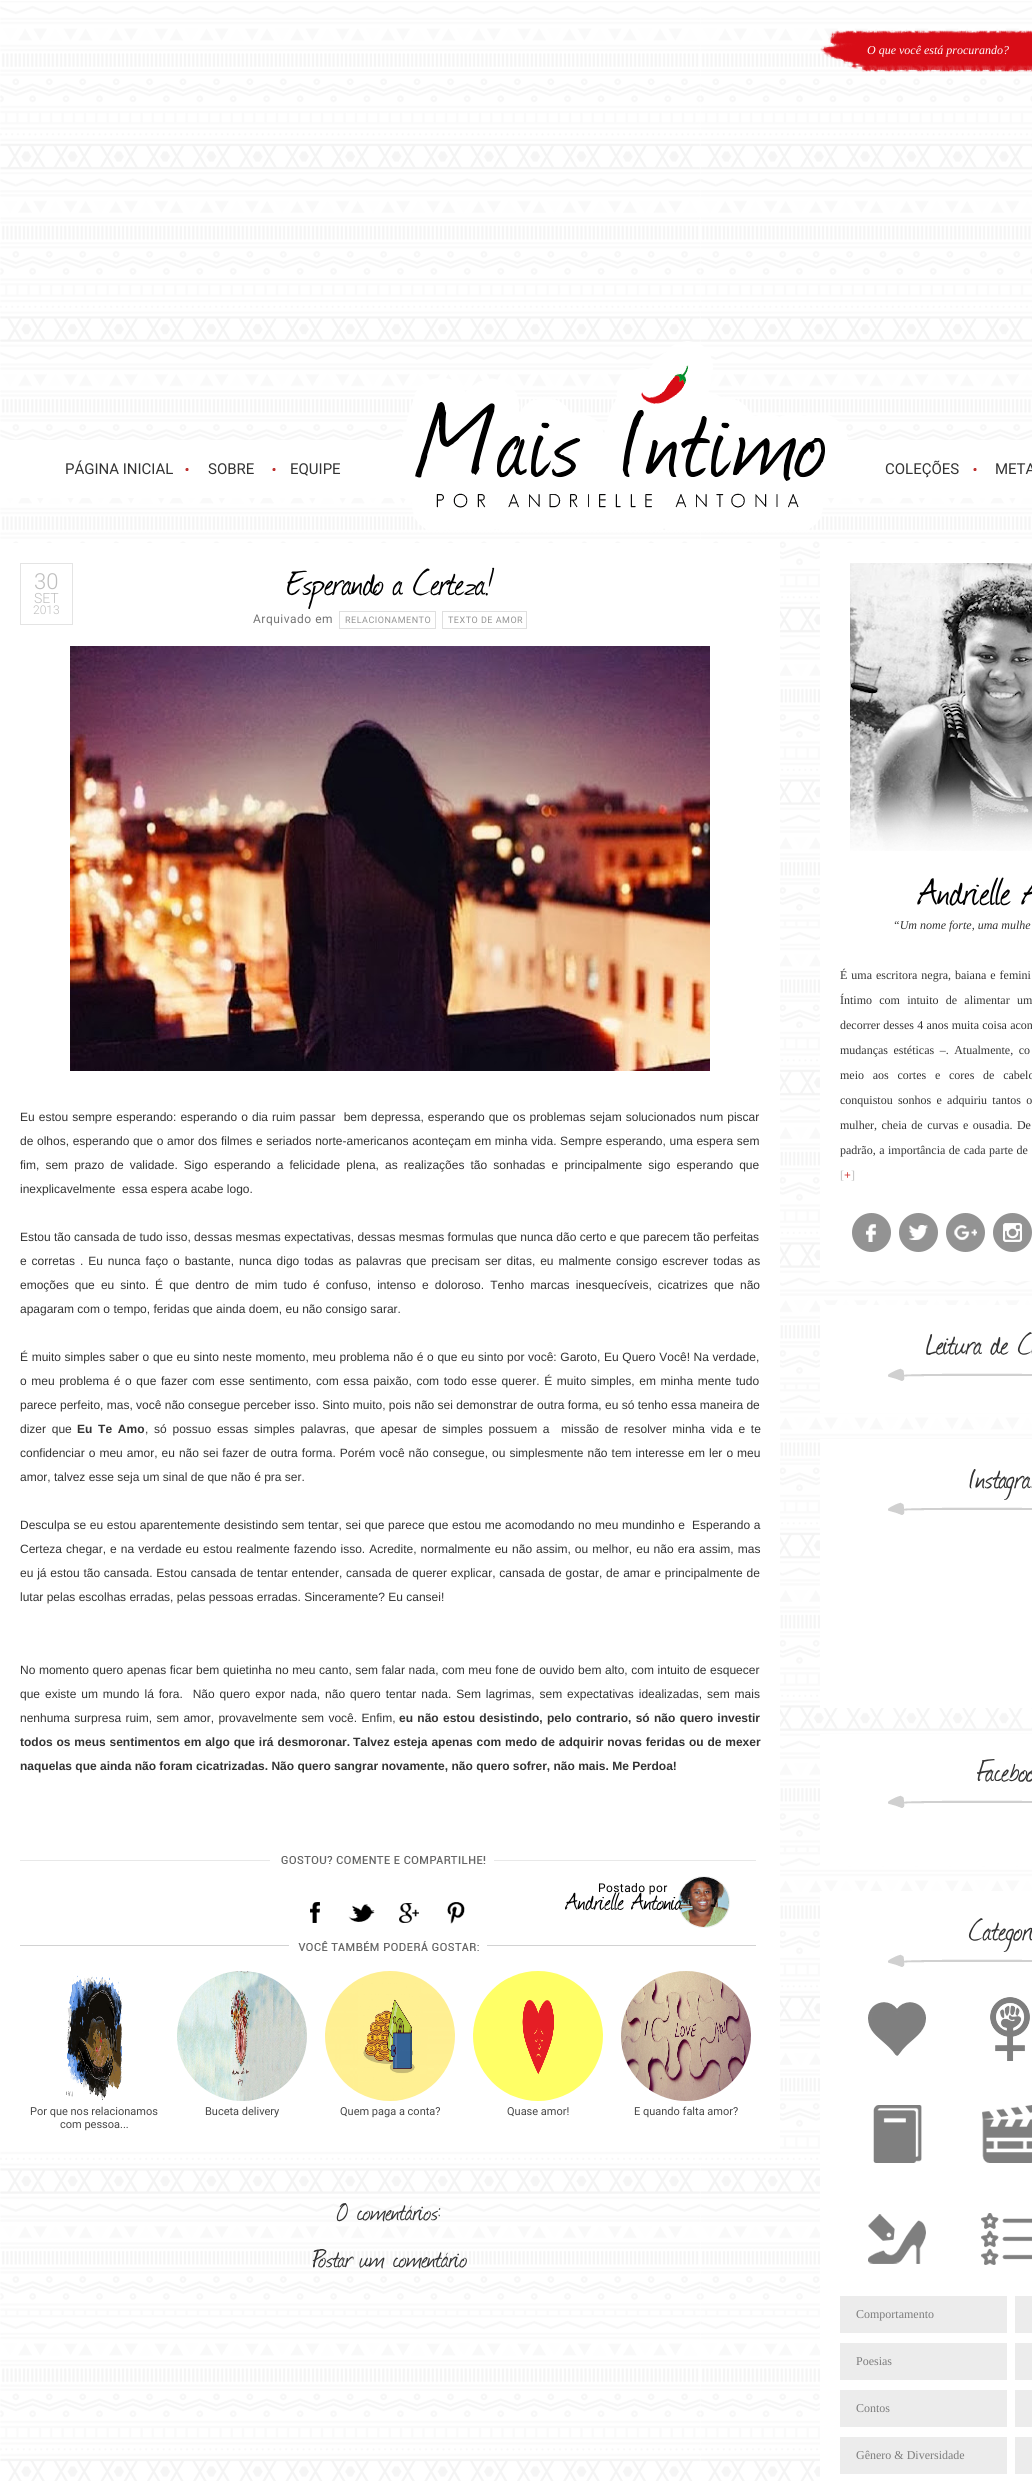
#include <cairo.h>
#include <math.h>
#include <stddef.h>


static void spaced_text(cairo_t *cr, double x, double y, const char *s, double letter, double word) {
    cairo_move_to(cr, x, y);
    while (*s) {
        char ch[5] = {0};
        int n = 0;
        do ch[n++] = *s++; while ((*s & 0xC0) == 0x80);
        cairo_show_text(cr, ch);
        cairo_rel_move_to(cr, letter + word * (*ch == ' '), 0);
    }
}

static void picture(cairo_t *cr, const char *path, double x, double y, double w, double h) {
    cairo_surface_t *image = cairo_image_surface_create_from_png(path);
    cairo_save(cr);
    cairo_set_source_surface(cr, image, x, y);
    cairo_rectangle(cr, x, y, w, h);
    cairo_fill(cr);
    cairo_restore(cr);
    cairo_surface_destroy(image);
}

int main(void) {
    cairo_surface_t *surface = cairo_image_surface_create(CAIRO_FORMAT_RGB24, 1032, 2481);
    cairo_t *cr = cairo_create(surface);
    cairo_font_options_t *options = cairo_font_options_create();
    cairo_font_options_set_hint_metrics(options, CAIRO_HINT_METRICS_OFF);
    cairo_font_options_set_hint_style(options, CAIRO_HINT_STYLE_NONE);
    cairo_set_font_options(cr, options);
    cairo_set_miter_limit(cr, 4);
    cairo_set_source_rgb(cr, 1, 1, 1);
    cairo_paint(cr);
    picture(cr, "img1.png", 0, 1, 1032, 2480);
    picture(cr, "img2.png", 820, 30, 212, 43);
    cairo_select_font_face(cr, "Liberation Serif", CAIRO_FONT_SLANT_ITALIC, CAIRO_FONT_WEIGHT_NORMAL);
    cairo_set_font_size(cr, 12);
    cairo_set_source_rgb(cr, 1, 1, 1);
    cairo_move_to(cr, 867, 54);
    cairo_show_text(cr, "O que você está procurando?");
    cairo_rectangle(cr, 820, 543, 212, 738);
    cairo_fill(cr);
    picture(cr, "img3.png", 850, 563, 182, 288);
    picture(cr, "img4.png", 917, 877, 94, 29);
    picture(cr, "img5.png", 1021, 885, 11, 20);
    cairo_set_source_rgb(cr, 0.2, 0.2, 0.2);
    cairo_move_to(cr, 893, 929);
    cairo_show_text(cr, "“Um nome forte, uma mulhe");
    cairo_select_font_face(cr, "Liberation Serif", CAIRO_FONT_SLANT_NORMAL, CAIRO_FONT_WEIGHT_NORMAL);
    spaced_text(cr, 840, 979, "É uma escritora negra, baiana e femini", 0, 1);
    spaced_text(cr, 840, 1004, "Íntimo com intuito de alimentar um", 0, 4.25);
    spaced_text(cr, 840, 1029, "decorrer desses 4 anos muita coisa acon", 0, 0.25);
    spaced_text(cr, 840, 1054, "mudanças estéticas –. Atualmente, co", 0, 2.5);
    spaced_text(cr, 840, 1079, "meio aos cortes e cores de cabelo", 0, 5.75);
    spaced_text(cr, 840, 1104, "conquistou sonhos e adquiriu tantos o", 0, 2.25);
    spaced_text(cr, 840, 1129, "mulher, cheia de curvas e ousadia. De", 0, 1.5);
    spaced_text(cr, 840, 1154, "padrão, a importância de cada parte de", 0, 0.5);
    cairo_set_source_rgb(cr, 0.745, 0.745, 0.745);
    cairo_move_to(cr, 840, 1179);
    cairo_show_text(cr, "[");
    cairo_select_font_face(cr, "Liberation Serif", CAIRO_FONT_SLANT_NORMAL, CAIRO_FONT_WEIGHT_BOLD);
    cairo_set_source_rgb(cr, 0.82, 0.235, 0.224);
    cairo_move_to(cr, 844, 1179);
    cairo_show_text(cr, "+");
    cairo_select_font_face(cr, "Liberation Serif", CAIRO_FONT_SLANT_NORMAL, CAIRO_FONT_WEIGHT_NORMAL);
    cairo_set_source_rgb(cr, 0.745, 0.745, 0.745);
    cairo_move_to(cr, 851, 1179);
    cairo_show_text(cr, "]");
    cairo_set_source_rgb(cr, 0.576, 0.576, 0.576);
    cairo_new_path(cr);
    cairo_arc(cr, 871.5, 1232.5, 19.5, 0, 2 * M_PI);
    cairo_fill(cr);
    cairo_arc(cr, 918.5, 1232.5, 19.5, 0, 2 * M_PI);
    cairo_fill(cr);
    cairo_arc(cr, 965.5, 1232.5, 19.5, 0, 2 * M_PI);
    cairo_fill(cr);
    cairo_arc(cr, 1012.5, 1232.5, 19.5, 0, 2 * M_PI);
    cairo_fill(cr);
    picture(cr, "img6.png", 866, 1224, 10, 18);
    picture(cr, "img7.png", 909, 1225, 19, 15);
    picture(cr, "img8.png", 954, 1225, 23, 15);
    picture(cr, "img9.png", 1003, 1223, 19, 19);
    cairo_set_source_rgb(cr, 1, 1, 1);
    cairo_rectangle(cr, 820, 1305, 212, 108);
    cairo_fill(cr);
    picture(cr, "img10.png", 888, 1368, 144, 13);
    picture(cr, "img11.png", 926, 1334, 56, 21);
    picture(cr, "img12.png", 990, 1337, 19, 18);
    picture(cr, "img13.png", 1017, 1332, 15, 23);
    cairo_rectangle(cr, 820, 1439, 212, 269);
    cairo_fill(cr);
    picture(cr, "img10.png", 888, 1502, 144, 13);
    picture(cr, "img14.png", 969, 1469, 63, 31);
    cairo_rectangle(cr, 820, 1734, 212, 132);
    cairo_fill(cr);
    picture(cr, "img10.png", 888, 1795, 144, 13);
    picture(cr, "img15.png", 977, 1759, 55, 23);
    cairo_rectangle(cr, 820, 1891, 212, 590);
    cairo_fill(cr);
    picture(cr, "img10.png", 888, 1954, 144, 13);
    picture(cr, "img16.png", 968, 1918, 64, 34);
    picture(cr, "img17.png", 868, 2002, 58, 54);
    picture(cr, "img18.png", 990, 1997, 40, 64);
    picture(cr, "img19.png", 873, 2105, 49, 58);
    picture(cr, "img20.png", 982, 2105, 50, 58);
    picture(cr, "img21.png", 868, 2214, 58, 50);
    picture(cr, "img22.png", 981, 2213, 51, 52);
    cairo_set_source_rgb(cr, 0.925, 0.925, 0.925);
    cairo_rectangle(cr, 840, 2296, 167, 37);
    cairo_fill(cr);
    cairo_set_source_rgb(cr, 0.49, 0.49, 0.49);
    cairo_move_to(cr, 856, 2318);
    cairo_show_text(cr, "Comportamento");
    cairo_set_source_rgb(cr, 0.925, 0.925, 0.925);
    cairo_rectangle(cr, 840, 2343, 167, 37);
    cairo_fill(cr);
    cairo_set_source_rgb(cr, 0.49, 0.49, 0.49);
    cairo_move_to(cr, 856, 2365);
    cairo_show_text(cr, "Poesias");
    cairo_set_source_rgb(cr, 0.925, 0.925, 0.925);
    cairo_rectangle(cr, 840, 2390, 167, 37);
    cairo_fill(cr);
    cairo_set_source_rgb(cr, 0.49, 0.49, 0.49);
    cairo_move_to(cr, 856, 2412);
    cairo_show_text(cr, "Contos");
    cairo_set_source_rgb(cr, 0.925, 0.925, 0.925);
    cairo_rectangle(cr, 840, 2437, 167, 37);
    cairo_fill(cr);
    cairo_set_source_rgb(cr, 0.49, 0.49, 0.49);
    cairo_move_to(cr, 856, 2459);
    cairo_show_text(cr, "Gênero & Diversidade");
    cairo_set_source_rgb(cr, 0.925, 0.925, 0.925);
    cairo_rectangle(cr, 1015, 2296, 17, 37);
    cairo_fill(cr);
    cairo_rectangle(cr, 1015, 2343, 17, 37);
    cairo_fill(cr);
    cairo_rectangle(cr, 1015, 2390, 17, 37);
    cairo_fill(cr);
    cairo_rectangle(cr, 1015, 2437, 17, 37);
    cairo_fill(cr);
    cairo_set_source_rgb(cr, 1, 1, 1);
    cairo_rectangle(cr, 0, 440, 1032, 58);
    cairo_fill(cr);
    picture(cr, "img23.png", 185, 468, 792, 3);
    cairo_select_font_face(cr, "Roboto", CAIRO_FONT_SLANT_NORMAL, CAIRO_FONT_WEIGHT_NORMAL);
    cairo_set_font_size(cr, 15);
    cairo_set_source_rgb(cr, 0.2, 0.2, 0.2);
    cairo_move_to(cr, 65, 474);
    cairo_show_text(cr, "PÁGINA INICIAL");
    cairo_move_to(cr, 208, 474);
    cairo_show_text(cr, "SOBRE");
    cairo_move_to(cr, 290, 474);
    cairo_show_text(cr, "EQUIPE");
    cairo_move_to(cr, 885, 474);
    cairo_show_text(cr, "COLEÇÕES");
    cairo_move_to(cr, 995, 474);
    cairo_show_text(cr, "META");
    cairo_set_source_rgb(cr, 1, 1, 1);
    cairo_rectangle(cr, 0, 543, 780, 1606);
    cairo_fill(cr);
    cairo_rectangle(cr, 20.5, 563.5, 52, 61);
    cairo_set_source_rgb(cr, 0.894, 0.894, 0.894);
    cairo_set_line_width(cr, 1);
    cairo_stroke(cr);
    cairo_select_font_face(cr, "Roboto Light", CAIRO_FONT_SLANT_NORMAL, CAIRO_FONT_WEIGHT_NORMAL);
    cairo_set_font_size(cr, 22);
    cairo_set_source_rgb(cr, 0.745, 0.745, 0.745);
    cairo_move_to(cr, 34, 589);
    cairo_show_text(cr, "30");
    cairo_set_font_size(cr, 14);
    cairo_move_to(cr, 34, 603);
    cairo_show_text(cr, "SET");
    cairo_set_font_size(cr, 12);
    cairo_move_to(cr, 33, 614);
    cairo_show_text(cr, "2013");
    picture(cr, "img24.png", 287, 570, 97, 39);
    picture(cr, "img25.png", 392, 581, 11, 15);
    picture(cr, "img26.png", 413, 567, 82, 29);
    cairo_select_font_face(cr, "Roboto", CAIRO_FONT_SLANT_NORMAL, CAIRO_FONT_WEIGHT_NORMAL);
    cairo_set_source_rgb(cr, 0.459, 0.459, 0.459);
    spaced_text(cr, 253, 623, "Arquivado em", 0.5, 0);
    cairo_rectangle(cr, 339.5, 611.5, 96, 17);
    cairo_set_source_rgb(cr, 0.875, 0.875, 0.875);
    cairo_stroke(cr);
    cairo_set_font_size(cr, 9);
    cairo_set_source_rgb(cr, 0.58, 0.58, 0.58);
    spaced_text(cr, 345, 623, "RELACIONAMENTO", 0.5, 0);
    cairo_rectangle(cr, 442.5, 611.5, 84, 17);
    cairo_set_source_rgb(cr, 0.875, 0.875, 0.875);
    cairo_stroke(cr);
    cairo_set_source_rgb(cr, 0.58, 0.58, 0.58);
    spaced_text(cr, 448, 623, "TEXTO DE AMOR", 0.5, 0);
    picture(cr, "img27.png", 70, 646, 640, 425);
    cairo_select_font_face(cr, "Liberation Sans", CAIRO_FONT_SLANT_NORMAL, CAIRO_FONT_WEIGHT_NORMAL);
    cairo_set_font_size(cr, 12);
    cairo_set_source_rgb(cr, 0.2, 0.2, 0.2);
    spaced_text(cr, 20, 1121, "Eu estou sempre esperando: esperando o dia ruim passar  bem depressa, esperando que os problemas sejam solucionados num piscar", 0, 0.75);
    spaced_text(cr, 20, 1145, "de olhos, esperando que o amor dos filmes e seriados norte-americanos aconteçam em minha vida. Sempre esperando, uma espera sem", 0, 0.3);
    spaced_text(cr, 20, 1169, "fim, sem prazo de validade. Sigo esperando a felicidade plena, as realizações tão sonhadas e principalmente sigo esperando que", 0, 2.75);
    cairo_move_to(cr, 20, 1193);
    cairo_show_text(cr, "inexplicavelmente  essa espera acabe logo.");
    cairo_move_to(cr, 20, 1241);
    cairo_show_text(cr, "Estou tão cansada de tudo isso, dessas mesmas expectativas, dessas mesmas formulas que nunca dão certo e que parecem tão perfeitas");
    spaced_text(cr, 20, 1265, "e corretas . Eu nunca faço o bastante, nunca digo todas as palavras que precisam ser ditas, eu malmente consigo escrever todas as", 0, 1.6);
    spaced_text(cr, 20, 1289, "emoções que eu sinto. É que dentro de mim tudo é confuso, intenso e doloroso. Tenho marcas inesquecíveis, cicatrizes que não", 0, 2.75);
    cairo_move_to(cr, 20, 1313);
    cairo_show_text(cr, "apagaram com o tempo, feridas que ainda doem, eu não consigo sarar.");
    spaced_text(cr, 20, 1361, "É muito simples saber o que eu sinto neste momento, meu problema não é o que eu sinto por você: Garoto, Eu Quero Você! Na verdade,", 0, 0.3);
    spaced_text(cr, 20, 1385, "o meu problema é o que fazer com esse sentimento, com essa paixão, com todo esse querer. É muito simples, em minha mente tudo", 0, 1.25);
    cairo_move_to(cr, 20, 1409);
    cairo_show_text(cr, "parece perfeito, mas, você não consegue perceber isso. Sinto muito, pois não sei demonstrar de outra forma, eu só tenho essa maneira de");
    spaced_text(cr, 20, 1433, "dizer que", 0, 2.4);
    cairo_select_font_face(cr, "Liberation Sans", CAIRO_FONT_SLANT_NORMAL, CAIRO_FONT_WEIGHT_BOLD);
    spaced_text(cr, 77, 1433, "Eu Te Amo", 0, 2.4);
    cairo_select_font_face(cr, "Liberation Sans", CAIRO_FONT_SLANT_NORMAL, CAIRO_FONT_WEIGHT_NORMAL);
    spaced_text(cr, 145, 1433, ", só possuo essas simples palavras, que apesar de simples possuem a  missão de resolver minha vida e te", 0, 2.4);
    spaced_text(cr, 20, 1457, "confidenciar o meu amor, eu não sei fazer de outra forma. Porém você não consegue, ou simplesmente não tem interesse em ler o meu", 0, 0.7);
    cairo_move_to(cr, 20, 1481);
    cairo_show_text(cr, "amor, talvez esse seja um sinal de que não é pra ser.");
    spaced_text(cr, 20, 1529, "Desculpa se eu estou aparentemente desistindo sem tentar, sei que parece que estou me acomodando no meu mundinho e  Esperando a", 0, 0.25);
    spaced_text(cr, 20, 1553, "Certeza chegar, e na verdade eu estou realmente fazendo isso. Acredite, normalmente eu não assim, ou melhor, eu não era assim, mas", 0, 0.7);
    spaced_text(cr, 20, 1577, "eu já estou tão cansada. Estou cansada de tentar entender, cansada de querer explicar, cansada de gostar, de amar e principalmente de", 0, 0.45);
    cairo_move_to(cr, 20, 1601);
    cairo_show_text(cr, "lutar pelas escolhas erradas, pelas pessoas erradas. Sinceramente? Eu cansei!");
    spaced_text(cr, 20, 1674, "No momento quero apenas ficar bem quietinha no meu canto, sem falar nada, com meu fone de ouvido bem alto, com intuito de esquecer", 0, 0.25);
    spaced_text(cr, 20, 1698, "que existe um mundo lá fora.  Não quero expor nada, não quero tentar nada. Sem lagrimas, sem expectativas idealizadas, sem mais", 0, 1.6);
    spaced_text(cr, 20, 1722, "nenhuma surpresa ruim, sem amor, provavelmente sem você. Enfim,", 0, 1);
    cairo_select_font_face(cr, "Liberation Sans", CAIRO_FONT_SLANT_NORMAL, CAIRO_FONT_WEIGHT_BOLD);
    spaced_text(cr, 399, 1722, "eu não estou desistindo, pelo contrario, só não quero investir", 0, 1);
    spaced_text(cr, 20, 1746, "todos os meus sentimentos em algo que irá desmoronar.", 0, 0.5);
    spaced_text(cr, 353, 1746, "Talvez esteja apenas com medo de adquirir novas feridas ou de mexer", 0, 0.5);
    cairo_move_to(cr, 20, 1770);
    cairo_show_text(cr, "naquelas que ainda não foram cicatrizadas. Não quero sangrar novamente, não quero sofrer, não mais. Me Perdoa!");
    picture(cr, "img28.png", 20, 1856, 736, 8);
    cairo_select_font_face(cr, "Roboto", CAIRO_FONT_SLANT_NORMAL, CAIRO_FONT_WEIGHT_NORMAL);
    cairo_set_source_rgb(cr, 0, 0, 0);
    spaced_text(cr, 598, 1892, "Postado por", 0.4, 0);
    picture(cr, "img29.png", 565, 1892, 59, 19);
    cairo_arc(cr, 704, 1902, 25.5, 0, 2 * M_PI);
    cairo_set_source_rgb(cr, 0.937, 0.937, 0.937);
    cairo_stroke(cr);
    picture(cr, "img31.png", 679, 1877, 50, 50);
    picture(cr, "img30.png", 631, 1892, 51, 18);
    picture(cr, "img32.png", 310, 1902, 10, 21);
    picture(cr, "img33.png", 348, 1904, 27, 18);
    picture(cr, "img34.png", 399, 1903, 20, 20);
    picture(cr, "img35.png", 447, 1902, 18, 22);
    picture(cr, "img36.png", 20, 1941, 736, 10);
    picture(cr, "img37.png", 66, 1975, 56, 125);
    cairo_set_font_size(cr, 11);
    cairo_set_source_rgb(cr, 0.278, 0.278, 0.278);
    cairo_move_to(cr, 30, 2115);
    cairo_show_text(cr, "Por que nos relacionamos");
    cairo_move_to(cr, 60, 2128);
    cairo_show_text(cr, "com pessoa...");
    picture(cr, "img38.png", 177, 1971, 130, 130);
    cairo_move_to(cr, 205, 2115);
    cairo_show_text(cr, "Buceta delivery");
    picture(cr, "img39.png", 325, 1971, 130, 130);
    cairo_move_to(cr, 340, 2115);
    cairo_show_text(cr, "Quem paga a conta?");
    picture(cr, "img40.png", 473, 1971, 130, 130);
    cairo_move_to(cr, 507, 2115);
    cairo_show_text(cr, "Quase amor!");
    picture(cr, "img41.png", 621, 1971, 130, 130);
    cairo_move_to(cr, 634, 2115);
    cairo_show_text(cr, "E quando falta amor?");
    picture(cr, "img42.png", 336, 2203, 12, 19);
    picture(cr, "img43.png", 357, 2205, 84, 17);
    picture(cr, "img44.png", 312, 2249, 42, 19);
    picture(cr, "img45.png", 359, 2257, 26, 12);
    picture(cr, "img46.png", 393, 2252, 74, 17);
    picture(cr, "img47.png", 402, 341, 446, 189);
    cairo_surface_write_to_png(surface, "page.png");
    cairo_font_options_destroy(options);
    cairo_destroy(cr);
    cairo_surface_destroy(surface);
    return 0;
}
